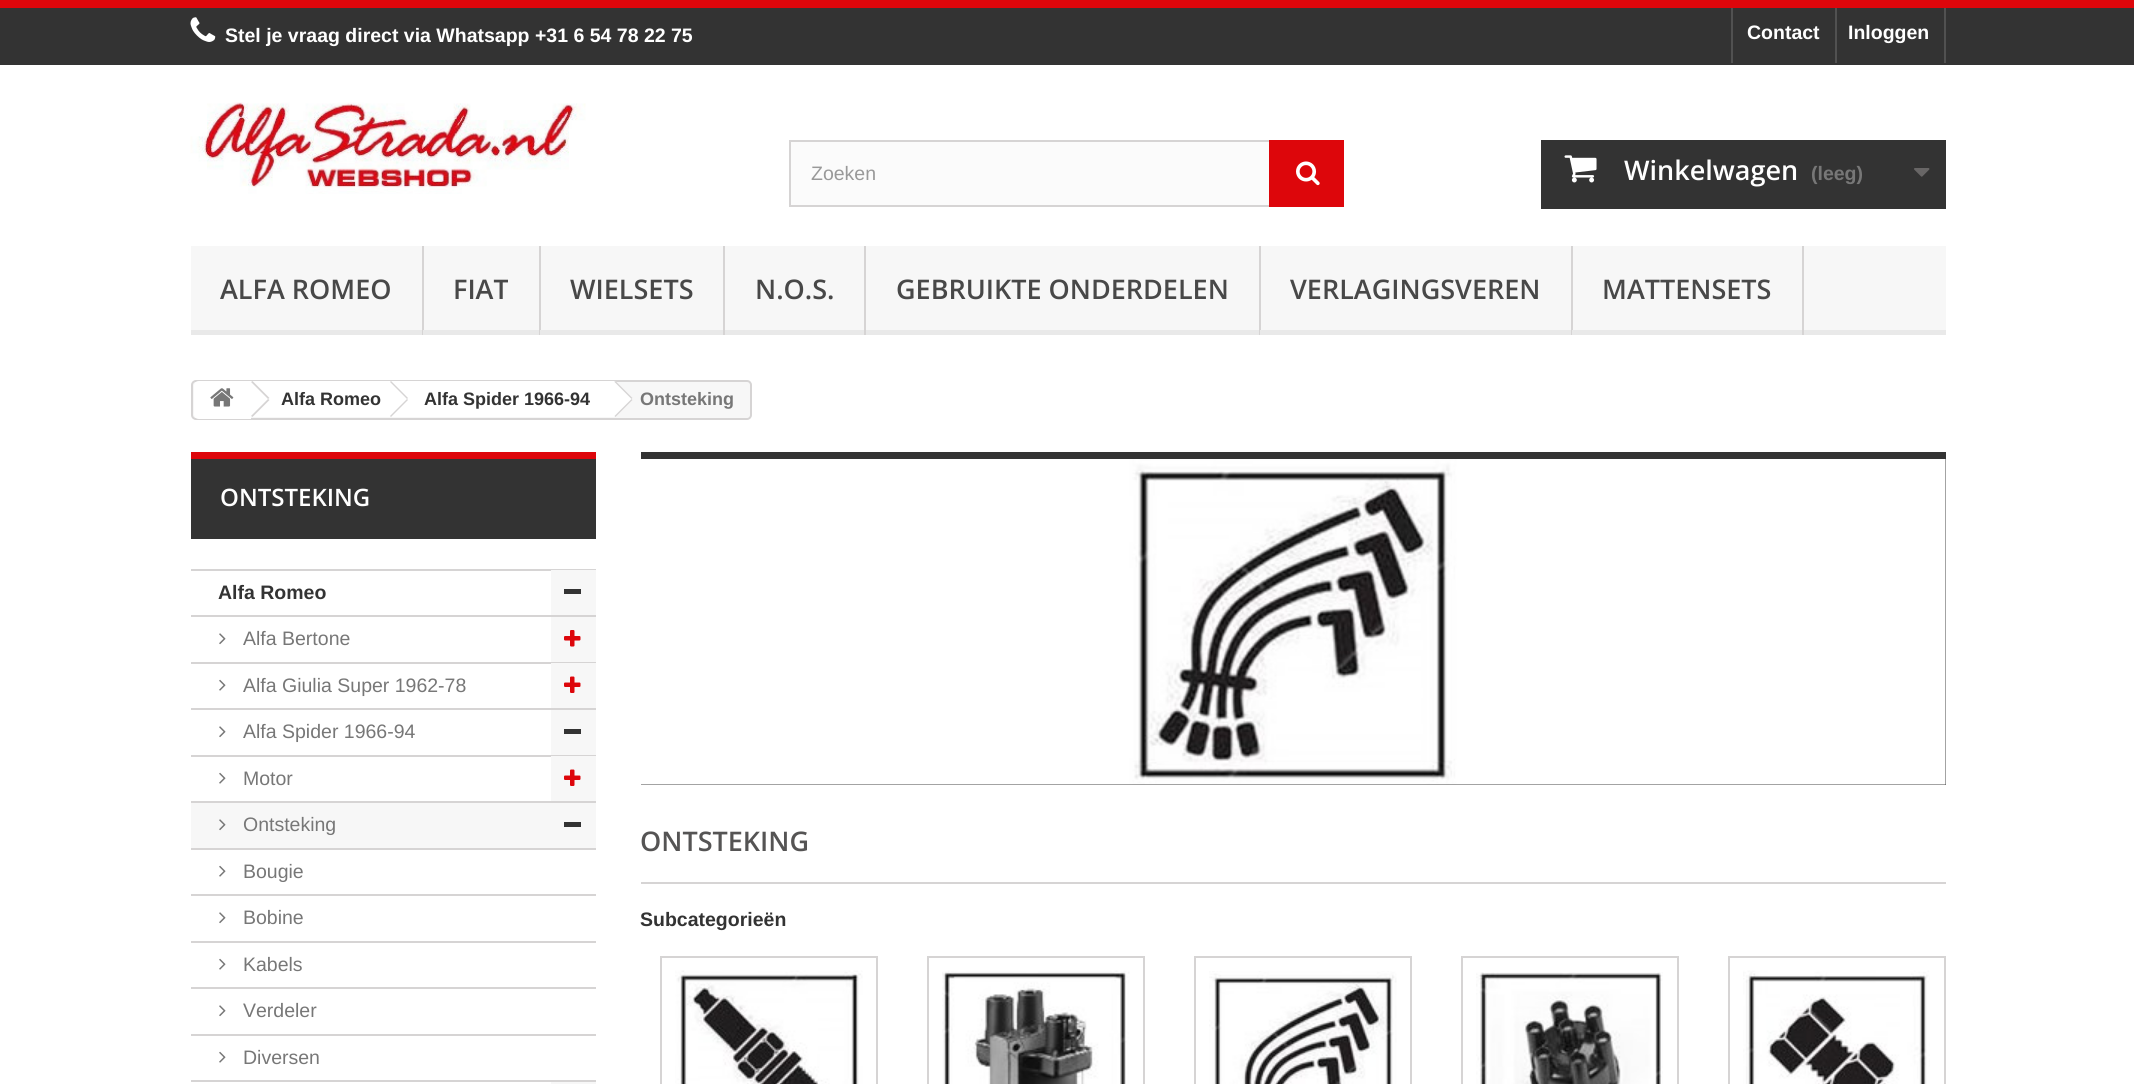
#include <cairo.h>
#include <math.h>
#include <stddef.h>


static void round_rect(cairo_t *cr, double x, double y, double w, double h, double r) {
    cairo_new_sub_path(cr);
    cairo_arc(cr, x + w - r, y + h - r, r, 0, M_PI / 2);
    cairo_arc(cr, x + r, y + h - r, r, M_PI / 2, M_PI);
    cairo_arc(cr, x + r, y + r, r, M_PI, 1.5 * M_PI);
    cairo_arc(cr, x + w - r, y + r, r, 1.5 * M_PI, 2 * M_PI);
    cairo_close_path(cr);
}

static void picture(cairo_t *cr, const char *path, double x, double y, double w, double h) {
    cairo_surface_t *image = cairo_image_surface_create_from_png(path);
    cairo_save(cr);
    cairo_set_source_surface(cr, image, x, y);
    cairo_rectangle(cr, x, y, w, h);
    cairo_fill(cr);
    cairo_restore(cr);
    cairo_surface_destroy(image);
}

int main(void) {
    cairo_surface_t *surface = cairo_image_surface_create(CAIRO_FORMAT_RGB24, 2134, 1084);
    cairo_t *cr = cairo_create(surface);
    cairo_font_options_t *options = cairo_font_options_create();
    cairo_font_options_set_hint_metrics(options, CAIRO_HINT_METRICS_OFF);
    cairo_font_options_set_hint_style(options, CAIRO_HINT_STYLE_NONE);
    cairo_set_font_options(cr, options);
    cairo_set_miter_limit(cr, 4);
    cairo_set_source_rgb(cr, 1, 1, 1);
    cairo_paint(cr);
    cairo_set_source_rgb(cr, 0.2, 0.2, 0.2);
    cairo_rectangle(cr, 0, 8, 2134, 57);
    cairo_fill(cr);
    cairo_set_source_rgb(cr, 0.867, 0.024, 0.043);
    cairo_rectangle(cr, 0, 0, 2134, 8);
    cairo_fill(cr);
    picture(cr, "img1.png", 190, 17, 26, 25);
    cairo_select_font_face(cr, "Liberation Sans", CAIRO_FONT_SLANT_NORMAL, CAIRO_FONT_WEIGHT_BOLD);
    cairo_set_font_size(cr, 19.5);
    cairo_set_source_rgb(cr, 1, 1, 1);
    cairo_move_to(cr, 225, 42);
    cairo_show_text(cr, "Stel je vraag direct via Whatsapp +31 6 54 78 22 75");
    cairo_set_source_rgb(cr, 0.318, 0.318, 0.318);
    cairo_rectangle(cr, 1731, 8, 2, 55);
    cairo_fill(cr);
    cairo_set_source_rgb(cr, 1, 1, 1);
    cairo_move_to(cr, 1747, 39);
    cairo_show_text(cr, "Contact");
    cairo_set_source_rgb(cr, 0.318, 0.318, 0.318);
    cairo_rectangle(cr, 1944, 8, 2, 55);
    cairo_fill(cr);
    cairo_rectangle(cr, 1835, 8, 2, 55);
    cairo_fill(cr);
    cairo_set_source_rgb(cr, 1, 1, 1);
    cairo_move_to(cr, 1848, 39);
    cairo_show_text(cr, "Inloggen");
    picture(cr, "img2.png", 190, 102, 396, 92);
    cairo_set_source_rgb(cr, 0.984, 0.984, 0.984);
    cairo_rectangle(cr, 791, 142, 478, 63);
    cairo_fill(cr);
    cairo_rectangle(cr, 790, 141, 553, 65);
    cairo_set_source_rgb(cr, 0.839, 0.831, 0.831);
    cairo_stroke(cr);
    cairo_select_font_face(cr, "Liberation Sans", CAIRO_FONT_SLANT_NORMAL, CAIRO_FONT_WEIGHT_NORMAL);
    cairo_set_source_rgb(cr, 0.6, 0.6, 0.6);
    cairo_move_to(cr, 811, 180);
    cairo_show_text(cr, "Zoeken");
    cairo_set_source_rgb(cr, 0.867, 0.024, 0.043);
    cairo_rectangle(cr, 1269, 140, 75, 67);
    cairo_fill(cr);
    picture(cr, "img3.png", 1296, 161, 24, 25);
    cairo_set_source_rgb(cr, 0.2, 0.2, 0.2);
    cairo_rectangle(cr, 1541, 140, 405, 69);
    cairo_fill(cr);
    picture(cr, "img4.png", 1564, 155, 33, 28);
    cairo_select_font_face(cr, "Open Sans SemiBold", CAIRO_FONT_SLANT_NORMAL, CAIRO_FONT_WEIGHT_NORMAL);
    cairo_set_font_size(cr, 27);
    cairo_set_source_rgb(cr, 1, 1, 1);
    cairo_move_to(cr, 1624, 180);
    cairo_show_text(cr, "Winkelwagen");
    cairo_select_font_face(cr, "Liberation Sans", CAIRO_FONT_SLANT_NORMAL, CAIRO_FONT_WEIGHT_BOLD);
    cairo_set_font_size(cr, 19.5);
    cairo_set_source_rgb(cr, 0.467, 0.467, 0.467);
    cairo_move_to(cr, 1811, 180);
    cairo_show_text(cr, "(leeg)");
    picture(cr, "img5.png", 1914, 168, 16, 9);
    cairo_set_source_rgb(cr, 0.965, 0.965, 0.965);
    cairo_rectangle(cr, 191, 246, 1755, 84);
    cairo_fill(cr);
    cairo_set_source_rgb(cr, 0.914, 0.914, 0.914);
    cairo_rectangle(cr, 191, 330, 1755, 5);
    cairo_fill(cr);
    cairo_set_source_rgb(cr, 0.839, 0.831, 0.831);
    cairo_rectangle(cr, 422, 246, 2, 89);
    cairo_fill(cr);
    cairo_select_font_face(cr, "Open Sans SemiBold", CAIRO_FONT_SLANT_NORMAL, CAIRO_FONT_WEIGHT_NORMAL);
    cairo_set_font_size(cr, 27);
    cairo_set_source_rgb(cr, 0.282, 0.282, 0.282);
    cairo_move_to(cr, 220, 299);
    cairo_show_text(cr, "ALFA ROMEO");
    cairo_set_source_rgb(cr, 0.839, 0.831, 0.831);
    cairo_rectangle(cr, 539, 246, 2, 89);
    cairo_fill(cr);
    cairo_set_source_rgb(cr, 0.914, 0.914, 0.914);
    cairo_rectangle(cr, 423, 330, 1, 5);
    cairo_fill(cr);
    cairo_set_source_rgb(cr, 0.282, 0.282, 0.282);
    cairo_move_to(cr, 453, 299);
    cairo_show_text(cr, "FIAT");
    cairo_set_source_rgb(cr, 0.839, 0.831, 0.831);
    cairo_rectangle(cr, 723, 246, 2, 89);
    cairo_fill(cr);
    cairo_set_source_rgb(cr, 0.914, 0.914, 0.914);
    cairo_rectangle(cr, 540, 330, 1, 5);
    cairo_fill(cr);
    cairo_set_source_rgb(cr, 0.282, 0.282, 0.282);
    cairo_move_to(cr, 570, 299);
    cairo_show_text(cr, "WIELSETS");
    cairo_set_source_rgb(cr, 0.839, 0.831, 0.831);
    cairo_rectangle(cr, 864, 246, 2, 89);
    cairo_fill(cr);
    cairo_set_source_rgb(cr, 0.282, 0.282, 0.282);
    cairo_move_to(cr, 755, 299);
    cairo_show_text(cr, "N.O.S.");
    cairo_set_source_rgb(cr, 0.839, 0.831, 0.831);
    cairo_rectangle(cr, 1259, 246, 2, 89);
    cairo_fill(cr);
    cairo_set_source_rgb(cr, 0.282, 0.282, 0.282);
    cairo_move_to(cr, 896, 299);
    cairo_show_text(cr, "GEBRUIKTE ONDERDELEN");
    cairo_set_source_rgb(cr, 0.839, 0.831, 0.831);
    cairo_rectangle(cr, 1571, 246, 2, 89);
    cairo_fill(cr);
    cairo_set_source_rgb(cr, 0.914, 0.914, 0.914);
    cairo_rectangle(cr, 1260, 330, 1, 5);
    cairo_fill(cr);
    cairo_set_source_rgb(cr, 0.282, 0.282, 0.282);
    cairo_move_to(cr, 1290, 299);
    cairo_show_text(cr, "VERLAGINGSVEREN");
    cairo_set_source_rgb(cr, 0.839, 0.831, 0.831);
    cairo_rectangle(cr, 1802, 246, 2, 89);
    cairo_fill(cr);
    cairo_set_source_rgb(cr, 0.914, 0.914, 0.914);
    cairo_rectangle(cr, 1572, 330, 1, 5);
    cairo_fill(cr);
    cairo_set_source_rgb(cr, 0.282, 0.282, 0.282);
    cairo_move_to(cr, 1602, 299);
    cairo_show_text(cr, "MATTENSETS");
    cairo_set_source_rgb(cr, 0.965, 0.965, 0.965);
    round_rect(cr, 192, 381, 559, 38, 4);
    cairo_fill_preserve(cr);
    cairo_set_source_rgb(cr, 0.839, 0.831, 0.831);
    cairo_stroke(cr);
    cairo_set_source_rgb(cr, 1, 1, 1);
    cairo_new_path(cr);
    cairo_move_to(cr, 199, 381);
    cairo_line_to(cr, 251, 381);
    cairo_line_to(cr, 251, 419);
    cairo_line_to(cr, 199, 419);
    cairo_curve_to(cr, 196, 419, 194, 417, 194, 414);
    cairo_line_to(cr, 194, 386);
    cairo_curve_to(cr, 194, 383, 196, 381, 199, 381);
    cairo_close_path(cr);
    cairo_fill(cr);
    picture(cr, "img6.png", 210, 388, 24, 19);
    cairo_rectangle(cr, 251, 381, 141, 36);
    cairo_fill(cr);
    cairo_set_source_rgb(cr, 0.839, 0.831, 0.831);
    cairo_new_path(cr);
    cairo_move_to(cr, 252.5, 381);
    cairo_line_to(cr, 269.5, 398);
    cairo_line_to(cr, 268, 399);
    cairo_line_to(cr, 251, 382);
    cairo_close_path(cr);
    cairo_move_to(cr, 268, 399);
    cairo_line_to(cr, 269.5, 400);
    cairo_line_to(cr, 252.5, 417);
    cairo_line_to(cr, 251, 416);
    cairo_close_path(cr);
    cairo_fill(cr);
    cairo_select_font_face(cr, "Liberation Sans", CAIRO_FONT_SLANT_NORMAL, CAIRO_FONT_WEIGHT_BOLD);
    cairo_set_font_size(cr, 18);
    cairo_set_source_rgb(cr, 0.2, 0.2, 0.2);
    cairo_move_to(cr, 281, 405);
    cairo_show_text(cr, "Alfa Romeo");
    cairo_set_source_rgb(cr, 1, 1, 1);
    cairo_new_path(cr);
    cairo_move_to(cr, 407, 382);
    cairo_line_to(cr, 422, 397);
    cairo_curve_to(cr, 423, 398, 423, 400, 422, 401);
    cairo_line_to(cr, 407, 416);
    cairo_curve_to(cr, 406, 417, 404, 417, 402.5, 416);
    cairo_line_to(cr, 388, 401);
    cairo_curve_to(cr, 386.5, 400, 386.5, 398, 388, 397);
    cairo_line_to(cr, 402.5, 382);
    cairo_curve_to(cr, 404, 381, 406, 381, 407, 382);
    cairo_close_path(cr);
    cairo_fill(cr);
    cairo_rectangle(cr, 392, 381, 222, 36);
    cairo_fill(cr);
    cairo_set_source_rgb(cr, 0.839, 0.831, 0.831);
    cairo_new_path(cr);
    cairo_move_to(cr, 391, 381);
    cairo_line_to(cr, 408, 398);
    cairo_line_to(cr, 407, 399);
    cairo_line_to(cr, 390, 382);
    cairo_close_path(cr);
    cairo_move_to(cr, 407, 399);
    cairo_line_to(cr, 408, 400);
    cairo_line_to(cr, 391, 417);
    cairo_line_to(cr, 390, 416);
    cairo_close_path(cr);
    cairo_fill(cr);
    cairo_set_source_rgb(cr, 0.2, 0.2, 0.2);
    cairo_move_to(cr, 424, 405);
    cairo_show_text(cr, "Alfa Spider 1966-94");
    cairo_set_source_rgb(cr, 1, 1, 1);
    cairo_new_path(cr);
    cairo_move_to(cr, 616.5, 382);
    cairo_line_to(cr, 631.5, 397);
    cairo_curve_to(cr, 632.5, 398, 632.5, 400, 631.5, 401);
    cairo_line_to(cr, 616.5, 416);
    cairo_curve_to(cr, 615.5, 417, 613.5, 417, 612.5, 416);
    cairo_line_to(cr, 597.5, 401);
    cairo_curve_to(cr, 596, 400, 596, 398, 597.5, 397);
    cairo_line_to(cr, 612.5, 382);
    cairo_curve_to(cr, 613.5, 381, 615.5, 381, 616.5, 382);
    cairo_close_path(cr);
    cairo_fill(cr);
    cairo_set_source_rgb(cr, 0.839, 0.831, 0.831);
    cairo_new_path(cr);
    cairo_move_to(cr, 615.5, 381);
    cairo_line_to(cr, 632.5, 398);
    cairo_line_to(cr, 631.5, 399);
    cairo_line_to(cr, 614.5, 382);
    cairo_close_path(cr);
    cairo_move_to(cr, 631.5, 399);
    cairo_line_to(cr, 632.5, 400);
    cairo_line_to(cr, 615.5, 417);
    cairo_line_to(cr, 614.5, 416);
    cairo_close_path(cr);
    cairo_fill(cr);
    cairo_set_source_rgb(cr, 0.467, 0.467, 0.467);
    cairo_move_to(cr, 640, 405);
    cairo_show_text(cr, "Ontsteking");
    cairo_set_source_rgb(cr, 0.2, 0.2, 0.2);
    cairo_rectangle(cr, 191, 459, 405, 80);
    cairo_fill(cr);
    cairo_set_source_rgb(cr, 0.867, 0.024, 0.043);
    cairo_rectangle(cr, 191, 452, 405, 7);
    cairo_fill(cr);
    cairo_select_font_face(cr, "Open Sans SemiBold", CAIRO_FONT_SLANT_NORMAL, CAIRO_FONT_WEIGHT_NORMAL);
    cairo_set_font_size(cr, 24);
    cairo_set_source_rgb(cr, 1, 1, 1);
    cairo_move_to(cr, 220, 506);
    cairo_show_text(cr, "ONTSTEKING");
    cairo_set_source_rgb(cr, 0.839, 0.831, 0.831);
    cairo_rectangle(cr, 191, 569, 405, 2);
    cairo_fill(cr);
    cairo_rectangle(cr, 191, 615, 405, 2);
    cairo_fill(cr);
    cairo_select_font_face(cr, "Liberation Sans", CAIRO_FONT_SLANT_NORMAL, CAIRO_FONT_WEIGHT_BOLD);
    cairo_set_font_size(cr, 19.5);
    cairo_set_source_rgb(cr, 0.2, 0.2, 0.2);
    cairo_move_to(cr, 218, 599);
    cairo_show_text(cr, "Alfa Romeo");
    cairo_set_source_rgb(cr, 0.965, 0.965, 0.965);
    cairo_rectangle(cr, 551, 570, 45, 45);
    cairo_fill(cr);
    cairo_set_source_rgb(cr, 0.2, 0.2, 0.2);
    cairo_rectangle(cr, 564, 589, 17, 5);
    cairo_fill(cr);
    cairo_set_source_rgb(cr, 0.839, 0.831, 0.831);
    cairo_rectangle(cr, 191, 662, 405, 2);
    cairo_fill(cr);
    picture(cr, "img7.png", 219, 633, 7, 12);
    cairo_select_font_face(cr, "Liberation Sans", CAIRO_FONT_SLANT_NORMAL, CAIRO_FONT_WEIGHT_NORMAL);
    cairo_set_source_rgb(cr, 0.467, 0.467, 0.467);
    cairo_move_to(cr, 243, 645);
    cairo_show_text(cr, "Alfa Bertone");
    cairo_set_source_rgb(cr, 0.965, 0.965, 0.965);
    cairo_rectangle(cr, 551, 617, 45, 45);
    cairo_fill(cr);
    picture(cr, "img8.png", 564, 630, 17, 17);
    cairo_set_source_rgb(cr, 0.839, 0.831, 0.831);
    cairo_rectangle(cr, 191, 708, 405, 2);
    cairo_fill(cr);
    picture(cr, "img9.png", 219, 679, 7, 12);
    cairo_set_source_rgb(cr, 0.467, 0.467, 0.467);
    cairo_move_to(cr, 243, 692);
    cairo_show_text(cr, "Alfa Giulia Super 1962-78");
    cairo_set_source_rgb(cr, 0.965, 0.965, 0.965);
    cairo_rectangle(cr, 551, 663, 45, 45);
    cairo_fill(cr);
    picture(cr, "img10.png", 564, 676, 17, 17);
    cairo_set_source_rgb(cr, 0.839, 0.831, 0.831);
    cairo_rectangle(cr, 191, 755, 405, 2);
    cairo_fill(cr);
    picture(cr, "img7.png", 219, 726, 7, 12);
    cairo_set_source_rgb(cr, 0.467, 0.467, 0.467);
    cairo_move_to(cr, 243, 738);
    cairo_show_text(cr, "Alfa Spider 1966-94");
    cairo_set_source_rgb(cr, 0.965, 0.965, 0.965);
    cairo_rectangle(cr, 551, 710, 45, 45);
    cairo_fill(cr);
    cairo_set_source_rgb(cr, 0.2, 0.2, 0.2);
    cairo_rectangle(cr, 564, 729, 17, 5);
    cairo_fill(cr);
    cairo_set_source_rgb(cr, 0.839, 0.831, 0.831);
    cairo_rectangle(cr, 191, 801, 405, 2);
    cairo_fill(cr);
    picture(cr, "img9.png", 219, 772, 7, 12);
    cairo_set_source_rgb(cr, 0.467, 0.467, 0.467);
    cairo_move_to(cr, 243, 785);
    cairo_show_text(cr, "Motor");
    cairo_set_source_rgb(cr, 0.965, 0.965, 0.965);
    cairo_rectangle(cr, 551, 756, 45, 45);
    cairo_fill(cr);
    picture(cr, "img10.png", 564, 769, 17, 17);
    cairo_rectangle(cr, 191, 803, 405, 45);
    cairo_fill(cr);
    cairo_set_source_rgb(cr, 0.839, 0.831, 0.831);
    cairo_rectangle(cr, 191, 848, 405, 2);
    cairo_fill(cr);
    picture(cr, "img11.png", 219, 819, 7, 12);
    cairo_set_source_rgb(cr, 0.467, 0.467, 0.467);
    cairo_move_to(cr, 243, 831);
    cairo_show_text(cr, "Ontsteking");
    cairo_set_source_rgb(cr, 0.2, 0.2, 0.2);
    cairo_rectangle(cr, 564, 822, 17, 5);
    cairo_fill(cr);
    cairo_set_source_rgb(cr, 0.839, 0.831, 0.831);
    cairo_rectangle(cr, 191, 894, 405, 2);
    cairo_fill(cr);
    picture(cr, "img9.png", 219, 865, 7, 12);
    cairo_set_source_rgb(cr, 0.467, 0.467, 0.467);
    cairo_move_to(cr, 243, 878);
    cairo_show_text(cr, "Bougie");
    cairo_set_source_rgb(cr, 0.839, 0.831, 0.831);
    cairo_rectangle(cr, 191, 941, 405, 2);
    cairo_fill(cr);
    picture(cr, "img7.png", 219, 912, 7, 12);
    cairo_set_source_rgb(cr, 0.467, 0.467, 0.467);
    cairo_move_to(cr, 243, 924);
    cairo_show_text(cr, "Bobine");
    cairo_set_source_rgb(cr, 0.839, 0.831, 0.831);
    cairo_rectangle(cr, 191, 987, 405, 2);
    cairo_fill(cr);
    picture(cr, "img9.png", 219, 958, 7, 12);
    cairo_set_source_rgb(cr, 0.467, 0.467, 0.467);
    cairo_move_to(cr, 243, 971);
    cairo_show_text(cr, "Kabels");
    cairo_set_source_rgb(cr, 0.839, 0.831, 0.831);
    cairo_rectangle(cr, 191, 1034, 405, 2);
    cairo_fill(cr);
    picture(cr, "img7.png", 219, 1005, 7, 12);
    cairo_set_source_rgb(cr, 0.467, 0.467, 0.467);
    cairo_move_to(cr, 243, 1017);
    cairo_show_text(cr, "Verdeler");
    cairo_set_source_rgb(cr, 0.839, 0.831, 0.831);
    cairo_rectangle(cr, 191, 1080, 405, 2);
    cairo_fill(cr);
    picture(cr, "img9.png", 219, 1051, 7, 12);
    cairo_set_source_rgb(cr, 0.467, 0.467, 0.467);
    cairo_move_to(cr, 243, 1064);
    cairo_show_text(cr, "Diversen");
    cairo_set_source_rgb(cr, 0.965, 0.965, 0.965);
    cairo_rectangle(cr, 551, 1082, 45, 2);
    cairo_fill(cr);
    cairo_set_source_rgb(cr, 0.2, 0.2, 0.2);
    cairo_rectangle(cr, 641, 452, 1305, 7);
    cairo_fill(cr);
    cairo_set_source_rgb(cr, 0.275, 0.275, 0.275);
    cairo_rectangle(cr, 641, 459, 1305, 326);
    cairo_fill(cr);
    picture(cr, "img12.png", 641, 459, 1305, 326);
    cairo_select_font_face(cr, "Open Sans SemiBold", CAIRO_FONT_SLANT_NORMAL, CAIRO_FONT_WEIGHT_NORMAL);
    cairo_set_font_size(cr, 27);
    cairo_set_source_rgb(cr, 0.333, 0.329, 0.329);
    cairo_move_to(cr, 640, 851);
    cairo_show_text(cr, "ONTSTEKING");
    cairo_set_source_rgb(cr, 0.839, 0.831, 0.831);
    cairo_rectangle(cr, 641, 882, 1305, 2);
    cairo_fill(cr);
    cairo_select_font_face(cr, "Liberation Sans", CAIRO_FONT_SLANT_NORMAL, CAIRO_FONT_WEIGHT_BOLD);
    cairo_set_font_size(cr, 19.5);
    cairo_set_source_rgb(cr, 0.2, 0.2, 0.2);
    cairo_move_to(cr, 640, 926);
    cairo_show_text(cr, "Subcategorieën");
    cairo_rectangle(cr, 661, 957, 216, 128);
    cairo_set_source_rgb(cr, 0.839, 0.831, 0.831);
    cairo_stroke(cr);
    picture(cr, "img13.png", 675, 970, 188, 114);
    cairo_rectangle(cr, 928, 957, 216, 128);
    cairo_stroke(cr);
    picture(cr, "img14.png", 942, 970, 188, 114);
    cairo_rectangle(cr, 1195, 957, 216, 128);
    cairo_stroke(cr);
    picture(cr, "img15.png", 1209, 971, 188, 113);
    cairo_rectangle(cr, 1462, 957, 216, 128);
    cairo_stroke(cr);
    picture(cr, "img16.png", 1476, 972, 187, 112);
    cairo_rectangle(cr, 1729, 957, 216, 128);
    cairo_stroke(cr);
    picture(cr, "img17.png", 1743, 970, 187, 114);
    cairo_surface_write_to_png(surface, "page.png");
    cairo_font_options_destroy(options);
    cairo_destroy(cr);
    cairo_surface_destroy(surface);
    return 0;
}
